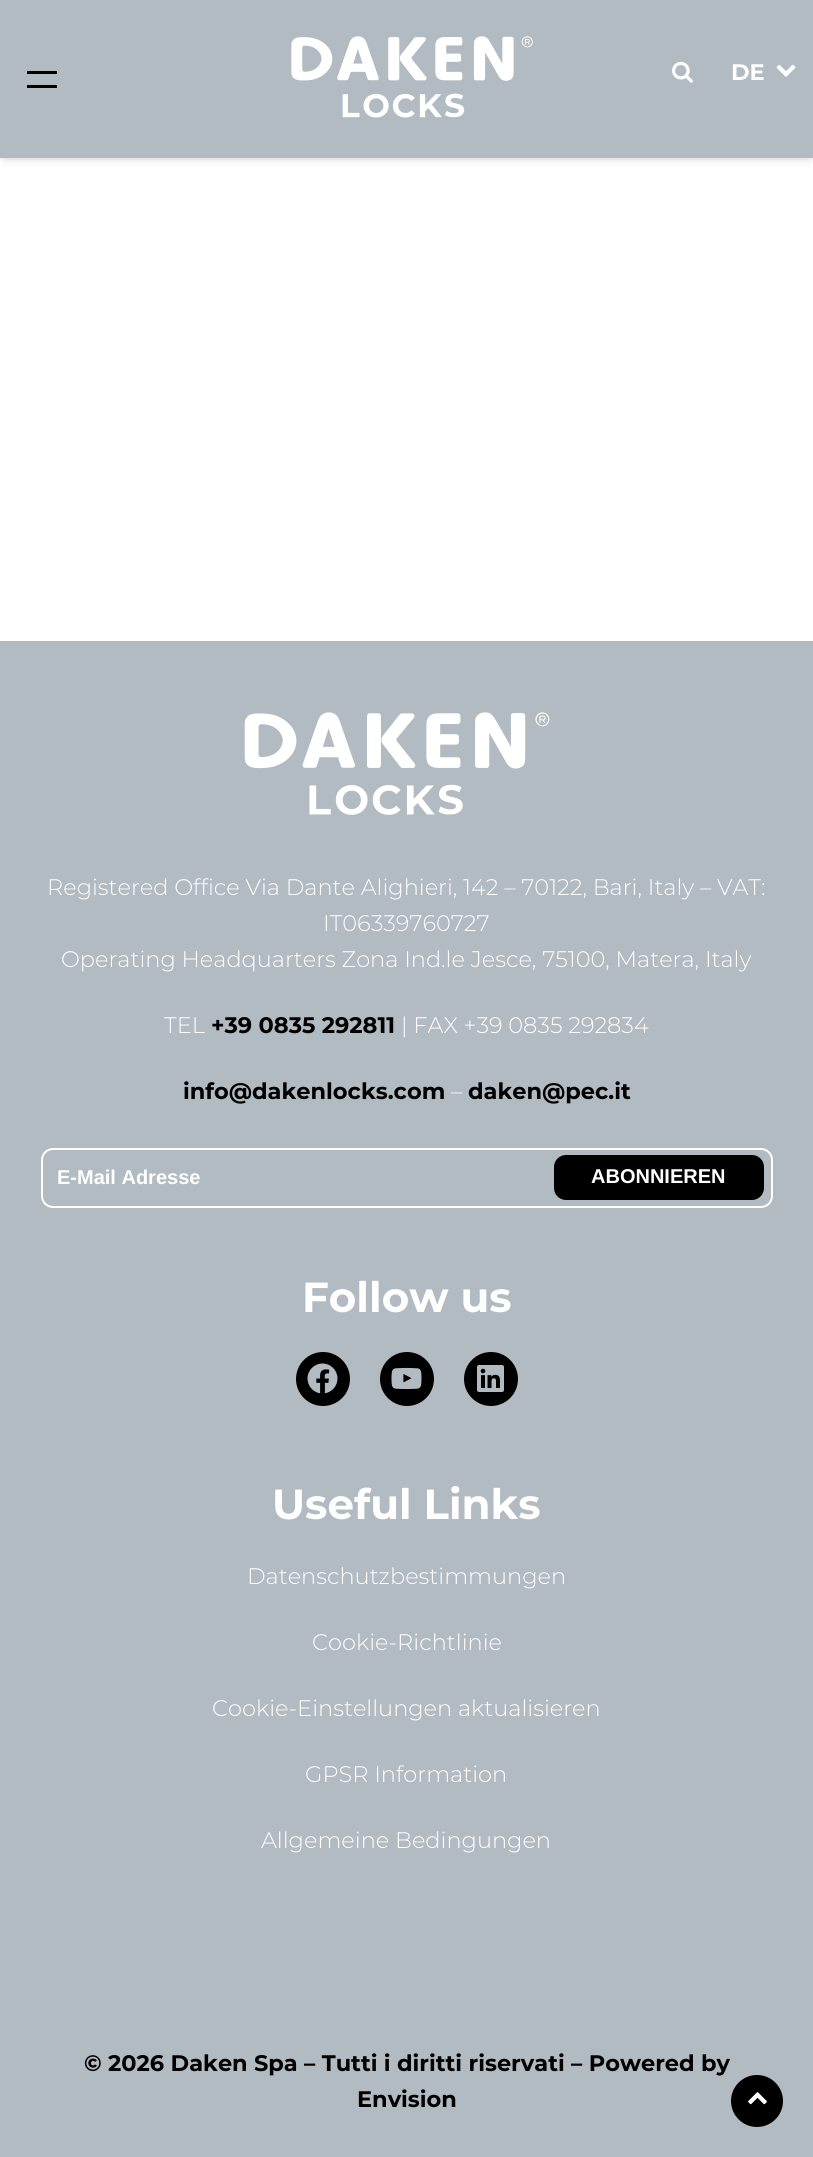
#include <cairo.h>
#include <math.h>
#include <stddef.h>


static void round_rect(cairo_t *cr, double x, double y, double w, double h, double r) {
    cairo_new_sub_path(cr);
    cairo_arc(cr, x + w - r, y + h - r, r, 0, M_PI / 2);
    cairo_arc(cr, x + r, y + h - r, r, M_PI / 2, M_PI);
    cairo_arc(cr, x + r, y + r, r, M_PI, 1.5 * M_PI);
    cairo_arc(cr, x + w - r, y + r, r, 1.5 * M_PI, 2 * M_PI);
    cairo_close_path(cr);
}

static void shadow(cairo_t *cr, double x, double y, double w, double h, double r, double blur, double alpha) {
    cairo_push_group_with_content(cr, CAIRO_CONTENT_ALPHA);
    cairo_set_operator(cr, CAIRO_OPERATOR_SOURCE);
    for (int i = 15; i >= -15 && fmin(w, h) + blur * i / 3 > 0; i -= 2) {
        double e = blur * i / 6;
        cairo_set_source_rgba(cr, 0, 0, 0, alpha * erfc((i - 1) / 8.5) / 2);
        round_rect(cr, x - e, y - e, w + 2 * e, h + 2 * e, fmax(0, fmin(r + e + blur * .6, fmin(w, h) / 2 + e)));
        cairo_fill(cr);
    }
    cairo_pattern_t *soft = cairo_pop_group(cr);
    cairo_mask(cr, soft);
    cairo_pattern_destroy(soft);
}

static void picture(cairo_t *cr, const char *path, double x, double y, double w, double h) {
    cairo_surface_t *image = cairo_image_surface_create_from_png(path);
    cairo_save(cr);
    cairo_set_source_surface(cr, image, x, y);
    cairo_rectangle(cr, x, y, w, h);
    cairo_fill(cr);
    cairo_restore(cr);
    cairo_surface_destroy(image);
}

int main(void) {
    cairo_surface_t *surface = cairo_image_surface_create(CAIRO_FORMAT_RGB24, 813, 2157);
    cairo_t *cr = cairo_create(surface);
    cairo_font_options_t *options = cairo_font_options_create();
    cairo_font_options_set_hint_metrics(options, CAIRO_HINT_METRICS_OFF);
    cairo_font_options_set_hint_style(options, CAIRO_HINT_STYLE_NONE);
    cairo_set_font_options(cr, options);
    cairo_set_miter_limit(cr, 4);
    cairo_set_source_rgb(cr, 1, 1, 1);
    cairo_paint(cr);
    cairo_set_source_rgb(cr, 0.392, 0.392, 0.392);
    shadow(cr, 5, 5, 804, 148, 0, 6, 1);
    cairo_set_source_rgb(cr, 0.698, 0.733, 0.757);
    cairo_rectangle(cr, 0, 0, 813, 158);
    cairo_fill(cr);
    cairo_set_source_rgb(cr, 0.004, 0, 0);
    cairo_rectangle(cr, 27, 71, 30, 3);
    cairo_fill(cr);
    cairo_rectangle(cr, 27, 85, 30, 3);
    cairo_fill(cr);
    picture(cr, "img1.png", 291, 36, 242, 82);
    picture(cr, "img2.png", 672, 61, 21, 22);
    cairo_select_font_face(cr, "Montserrat", CAIRO_FONT_SLANT_NORMAL, CAIRO_FONT_WEIGHT_BOLD);
    cairo_set_font_size(cr, 22.5);
    cairo_set_source_rgb(cr, 1, 1, 1);
    cairo_move_to(cr, 731, 80);
    cairo_show_text(cr, "DE");
    picture(cr, "img3.png", 776, 64, 20, 13);
    cairo_set_source_rgb(cr, 0.698, 0.733, 0.757);
    cairo_rectangle(cr, 0, 641, 813, 1516);
    cairo_fill(cr);
    picture(cr, "img4.png", 244, 712, 306, 103);
    cairo_select_font_face(cr, "Montserrat Light", CAIRO_FONT_SLANT_NORMAL, CAIRO_FONT_WEIGHT_NORMAL);
    cairo_set_source_rgb(cr, 1, 1, 1);
    cairo_move_to(cr, 47, 895);
    cairo_show_text(cr, "Registered Office Via Dante Alighieri, 142 – 70122, Bari, Italy – VAT:");
    cairo_move_to(cr, 323, 931);
    cairo_show_text(cr, "IT06339760727");
    cairo_move_to(cr, 61, 967);
    cairo_show_text(cr, "Operating Headquarters Zona Ind.le Jesce, 75100, Matera, Italy");
    cairo_move_to(cr, 164, 1033);
    cairo_show_text(cr, "TEL");
    cairo_select_font_face(cr, "Montserrat", CAIRO_FONT_SLANT_NORMAL, CAIRO_FONT_WEIGHT_BOLD);
    cairo_set_source_rgb(cr, 0, 0, 0);
    cairo_move_to(cr, 211, 1033);
    cairo_show_text(cr, "+39 0835 292811");
    cairo_select_font_face(cr, "Montserrat Light", CAIRO_FONT_SLANT_NORMAL, CAIRO_FONT_WEIGHT_NORMAL);
    cairo_set_source_rgb(cr, 1, 1, 1);
    cairo_move_to(cr, 401, 1033);
    cairo_show_text(cr, "| FAX +39 0835 292834");
    cairo_select_font_face(cr, "Montserrat", CAIRO_FONT_SLANT_NORMAL, CAIRO_FONT_WEIGHT_BOLD);
    cairo_set_source_rgb(cr, 0, 0, 0);
    cairo_move_to(cr, 183, 1099);
    cairo_show_text(cr, "info@dakenlocks.com");
    cairo_select_font_face(cr, "Montserrat Light", CAIRO_FONT_SLANT_NORMAL, CAIRO_FONT_WEIGHT_NORMAL);
    cairo_set_source_rgb(cr, 1, 1, 1);
    cairo_move_to(cr, 451, 1099);
    cairo_show_text(cr, "–");
    cairo_select_font_face(cr, "Montserrat", CAIRO_FONT_SLANT_NORMAL, CAIRO_FONT_WEIGHT_BOLD);
    cairo_set_source_rgb(cr, 0, 0, 0);
    cairo_move_to(cr, 468, 1099);
    cairo_show_text(cr, "daken@pec.it");
    round_rect(cr, 42, 1149, 730, 58, 11);
    cairo_set_source_rgb(cr, 1, 1, 1);
    cairo_stroke(cr);
    cairo_select_font_face(cr, "Liberation Sans", CAIRO_FONT_SLANT_NORMAL, CAIRO_FONT_WEIGHT_BOLD);
    cairo_set_font_size(cr, 20);
    cairo_move_to(cr, 57, 1184);
    cairo_show_text(cr, "E-Mail Adresse");
    cairo_set_source_rgb(cr, 0.004, 0, 0);
    round_rect(cr, 554, 1155, 210, 45, 12);
    cairo_fill(cr);
    cairo_set_source_rgb(cr, 1, 1, 1);
    cairo_move_to(cr, 591, 1183);
    cairo_show_text(cr, "ABONNIEREN");
    cairo_select_font_face(cr, "Montserrat", CAIRO_FONT_SLANT_NORMAL, CAIRO_FONT_WEIGHT_BOLD);
    cairo_set_font_size(cr, 42);
    cairo_move_to(cr, 302, 1312);
    cairo_show_text(cr, "Follow us");
    cairo_set_source_rgb(cr, 0.004, 0, 0);
    cairo_new_path(cr);
    cairo_arc(cr, 323, 1379, 27, 0, 2 * M_PI);
    cairo_fill(cr);
    picture(cr, "img5.png", 307, 1363, 31, 31);
    cairo_arc(cr, 407, 1379, 27, 0, 2 * M_PI);
    cairo_fill(cr);
    picture(cr, "img6.png", 391, 1367, 31, 23);
    cairo_arc(cr, 491, 1379, 27, 0, 2 * M_PI);
    cairo_fill(cr);
    picture(cr, "img7.png", 477, 1365, 27, 27);
    cairo_set_source_rgb(cr, 1, 1, 1);
    cairo_move_to(cr, 272, 1519);
    cairo_show_text(cr, "Useful Links");
    cairo_select_font_face(cr, "Montserrat Light", CAIRO_FONT_SLANT_NORMAL, CAIRO_FONT_WEIGHT_NORMAL);
    cairo_set_font_size(cr, 22.5);
    cairo_move_to(cr, 247, 1584);
    cairo_show_text(cr, "Datenschutzbestimmungen");
    cairo_move_to(cr, 312, 1650);
    cairo_show_text(cr, "Cookie-Richtlinie");
    cairo_move_to(cr, 212, 1716);
    cairo_show_text(cr, "Cookie-Einstellungen aktualisieren");
    cairo_move_to(cr, 305, 1782);
    cairo_show_text(cr, "GPSR Information");
    cairo_move_to(cr, 261, 1848);
    cairo_show_text(cr, "Allgemeine Bedingungen");
    cairo_select_font_face(cr, "Montserrat", CAIRO_FONT_SLANT_NORMAL, CAIRO_FONT_WEIGHT_BOLD);
    cairo_set_source_rgb(cr, 0, 0, 0);
    cairo_move_to(cr, 84, 2071);
    cairo_show_text(cr, "© 2026 Daken Spa – Tutti i diritti riservati – Powered by");
    cairo_move_to(cr, 357, 2107);
    cairo_show_text(cr, "Envision");
    cairo_set_source_rgb(cr, 0.004, 0, 0);
    cairo_new_path(cr);
    cairo_arc(cr, 757, 2101, 26, 0, 2 * M_PI);
    cairo_fill(cr);
    picture(cr, "img8.png", 748, 2092, 19, 13);
    cairo_surface_write_to_png(surface, "page.png");
    cairo_font_options_destroy(options);
    cairo_destroy(cr);
    cairo_surface_destroy(surface);
    return 0;
}
